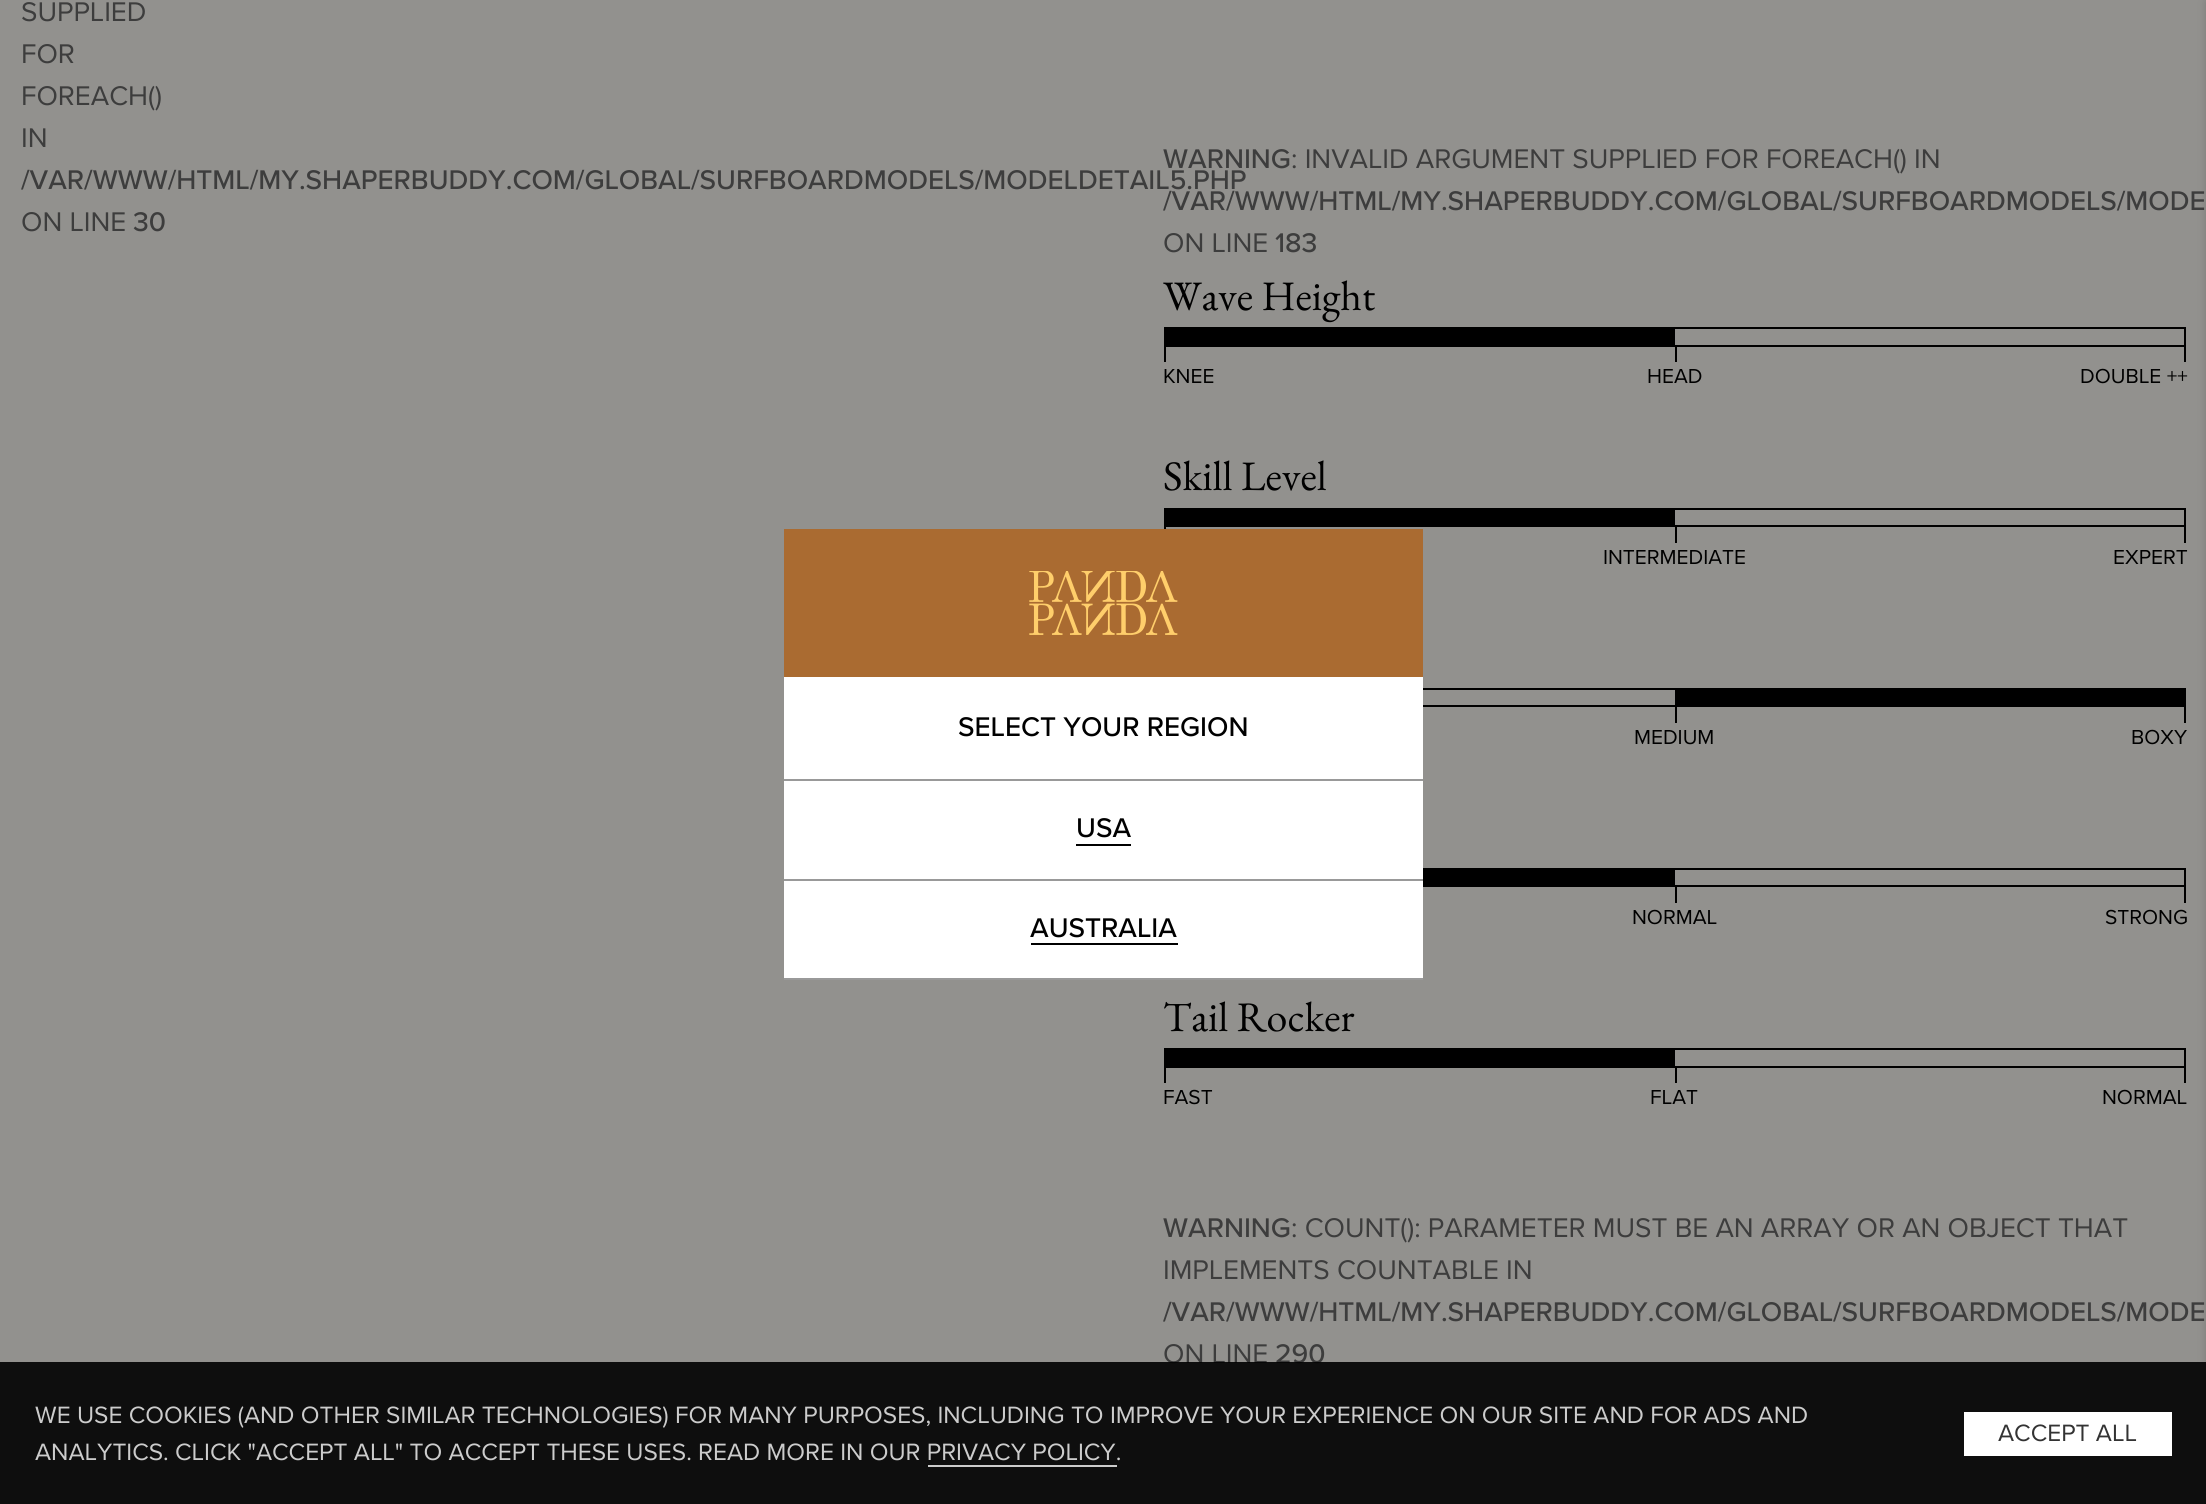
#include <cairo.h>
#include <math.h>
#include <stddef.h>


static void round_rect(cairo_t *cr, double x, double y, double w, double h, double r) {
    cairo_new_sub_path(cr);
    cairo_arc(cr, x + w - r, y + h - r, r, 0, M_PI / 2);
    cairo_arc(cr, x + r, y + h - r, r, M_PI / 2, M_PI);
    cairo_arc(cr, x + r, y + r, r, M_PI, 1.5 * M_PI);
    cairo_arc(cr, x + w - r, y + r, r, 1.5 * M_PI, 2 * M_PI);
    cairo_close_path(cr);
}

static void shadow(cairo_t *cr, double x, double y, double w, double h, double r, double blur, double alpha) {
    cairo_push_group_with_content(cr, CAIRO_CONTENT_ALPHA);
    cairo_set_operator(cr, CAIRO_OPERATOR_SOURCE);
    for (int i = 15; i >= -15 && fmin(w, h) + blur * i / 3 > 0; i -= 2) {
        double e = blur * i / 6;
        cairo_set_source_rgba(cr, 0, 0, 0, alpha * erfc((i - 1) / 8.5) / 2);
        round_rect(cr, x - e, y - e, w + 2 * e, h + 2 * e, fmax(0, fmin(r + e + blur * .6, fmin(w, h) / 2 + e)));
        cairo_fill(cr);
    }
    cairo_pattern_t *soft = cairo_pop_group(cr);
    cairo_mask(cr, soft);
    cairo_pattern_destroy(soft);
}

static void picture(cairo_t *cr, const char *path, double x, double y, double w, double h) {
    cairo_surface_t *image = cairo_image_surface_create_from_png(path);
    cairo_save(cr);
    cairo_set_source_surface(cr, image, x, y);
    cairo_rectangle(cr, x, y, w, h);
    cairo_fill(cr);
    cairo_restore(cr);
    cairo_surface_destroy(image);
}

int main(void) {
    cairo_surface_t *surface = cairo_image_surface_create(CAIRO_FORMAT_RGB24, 2206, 1504);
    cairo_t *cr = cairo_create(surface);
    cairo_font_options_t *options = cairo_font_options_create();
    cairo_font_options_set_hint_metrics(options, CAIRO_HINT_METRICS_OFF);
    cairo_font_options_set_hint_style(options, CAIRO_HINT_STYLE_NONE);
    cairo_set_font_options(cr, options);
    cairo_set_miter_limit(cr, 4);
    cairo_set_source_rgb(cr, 0.573, 0.569, 0.557);
    cairo_paint(cr);
    cairo_set_source_rgb(cr, 0, 0, 0);
    shadow(cr, 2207, 2, 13, 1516, 0, 4.5, 0.2);
    cairo_select_font_face(cr, "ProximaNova", CAIRO_FONT_SLANT_NORMAL, CAIRO_FONT_WEIGHT_NORMAL);
    cairo_set_font_size(cr, 28);
    cairo_set_source_rgb(cr, 0.239, 0.239, 0.239);
    cairo_move_to(cr, 21, 21);
    cairo_show_text(cr, "SUPPLIED");
    cairo_move_to(cr, 21, 63);
    cairo_show_text(cr, "FOR");
    cairo_move_to(cr, 21, 105);
    cairo_show_text(cr, "FOREACH()");
    cairo_move_to(cr, 21, 147);
    cairo_show_text(cr, "IN");
    cairo_select_font_face(cr, "Proxima Nova Medium", CAIRO_FONT_SLANT_NORMAL, CAIRO_FONT_WEIGHT_NORMAL);
    cairo_move_to(cr, 21, 189);
    cairo_show_text(cr, "/VAR/WWW/HTML/MY.SHAPERBUDDY.COM/GLOBAL/SURFBOARDMODELS/MODELDETAIL5.PHP");
    cairo_select_font_face(cr, "ProximaNova", CAIRO_FONT_SLANT_NORMAL, CAIRO_FONT_WEIGHT_NORMAL);
    cairo_move_to(cr, 21, 231);
    cairo_show_text(cr, "ON LINE");
    cairo_select_font_face(cr, "Proxima Nova Medium", CAIRO_FONT_SLANT_NORMAL, CAIRO_FONT_WEIGHT_NORMAL);
    cairo_move_to(cr, 133, 231);
    cairo_show_text(cr, "30");
    cairo_move_to(cr, 1163, 168);
    cairo_show_text(cr, "WARNING");
    cairo_select_font_face(cr, "ProximaNova", CAIRO_FONT_SLANT_NORMAL, CAIRO_FONT_WEIGHT_NORMAL);
    cairo_move_to(cr, 1291, 168);
    cairo_show_text(cr, ": INVALID ARGUMENT SUPPLIED FOR FOREACH() IN");
    cairo_select_font_face(cr, "Proxima Nova Medium", CAIRO_FONT_SLANT_NORMAL, CAIRO_FONT_WEIGHT_NORMAL);
    cairo_move_to(cr, 1163, 210);
    cairo_show_text(cr, "/VAR/WWW/HTML/MY.SHAPERBUDDY.COM/GLOBAL/SURFBOARDMODELS/MODE");
    cairo_select_font_face(cr, "ProximaNova", CAIRO_FONT_SLANT_NORMAL, CAIRO_FONT_WEIGHT_NORMAL);
    cairo_move_to(cr, 1163, 252);
    cairo_show_text(cr, "ON LINE");
    cairo_select_font_face(cr, "Proxima Nova Medium", CAIRO_FONT_SLANT_NORMAL, CAIRO_FONT_WEIGHT_NORMAL);
    cairo_move_to(cr, 1275, 252);
    cairo_show_text(cr, "183");
    cairo_select_font_face(cr, "EB Garamond", CAIRO_FONT_SLANT_NORMAL, CAIRO_FONT_WEIGHT_NORMAL);
    cairo_set_font_size(cr, 42);
    cairo_set_source_rgb(cr, 0, 0, 0);
    cairo_move_to(cr, 1163, 310);
    cairo_show_text(cr, "Wave Height");
    cairo_rectangle(cr, 1165, 328, 1020, 18);
    cairo_stroke(cr);
    cairo_rectangle(cr, 1166, 329, 509, 16);
    cairo_fill(cr);
    cairo_rectangle(cr, 1164, 347, 2, 15);
    cairo_fill(cr);
    cairo_rectangle(cr, 1675, 347, 2, 15);
    cairo_fill(cr);
    cairo_rectangle(cr, 2184, 347, 2, 15);
    cairo_fill(cr);
    cairo_select_font_face(cr, "ProximaNova", CAIRO_FONT_SLANT_NORMAL, CAIRO_FONT_WEIGHT_NORMAL);
    cairo_set_font_size(cr, 21);
    cairo_move_to(cr, 1163, 383);
    cairo_show_text(cr, "KNEE");
    cairo_move_to(cr, 1647, 383);
    cairo_show_text(cr, "HEAD");
    cairo_move_to(cr, 2080, 383);
    cairo_show_text(cr, "DOUBLE ++");
    cairo_select_font_face(cr, "EB Garamond", CAIRO_FONT_SLANT_NORMAL, CAIRO_FONT_WEIGHT_NORMAL);
    cairo_set_font_size(cr, 42);
    cairo_move_to(cr, 1163, 490);
    cairo_show_text(cr, "Skill Level");
    cairo_rectangle(cr, 1165, 509, 1020, 17);
    cairo_stroke(cr);
    cairo_rectangle(cr, 1166, 510, 509, 15);
    cairo_fill(cr);
    cairo_rectangle(cr, 1164, 527, 2, 2);
    cairo_fill(cr);
    cairo_rectangle(cr, 1675, 527, 2, 16);
    cairo_fill(cr);
    cairo_rectangle(cr, 2184, 527, 2, 16);
    cairo_fill(cr);
    cairo_select_font_face(cr, "ProximaNova", CAIRO_FONT_SLANT_NORMAL, CAIRO_FONT_WEIGHT_NORMAL);
    cairo_set_font_size(cr, 21);
    cairo_move_to(cr, 1603, 564);
    cairo_show_text(cr, "INTERMEDIATE");
    cairo_move_to(cr, 2113, 564);
    cairo_show_text(cr, "EXPERT");
    cairo_rectangle(cr, 1165, 689, 1020, 17);
    cairo_stroke(cr);
    cairo_rectangle(cr, 1675, 690, 509, 15);
    cairo_fill(cr);
    cairo_rectangle(cr, 1675, 707, 2, 16);
    cairo_fill(cr);
    cairo_rectangle(cr, 2184, 707, 2, 16);
    cairo_fill(cr);
    cairo_move_to(cr, 1634, 744);
    cairo_show_text(cr, "MEDIUM");
    cairo_move_to(cr, 2131, 744);
    cairo_show_text(cr, "BOXY");
    cairo_rectangle(cr, 1165, 869, 1020, 17);
    cairo_stroke(cr);
    cairo_rectangle(cr, 1423, 870, 252, 15);
    cairo_fill(cr);
    cairo_rectangle(cr, 1675, 887, 2, 16);
    cairo_fill(cr);
    cairo_rectangle(cr, 2184, 887, 2, 16);
    cairo_fill(cr);
    cairo_move_to(cr, 1632, 924);
    cairo_show_text(cr, "NORMAL");
    cairo_move_to(cr, 2105, 924);
    cairo_show_text(cr, "STRONG");
    cairo_select_font_face(cr, "EB Garamond", CAIRO_FONT_SLANT_NORMAL, CAIRO_FONT_WEIGHT_NORMAL);
    cairo_set_font_size(cr, 42);
    cairo_move_to(cr, 1163, 1031);
    cairo_show_text(cr, "Tail Rocker");
    cairo_rectangle(cr, 1165, 1049, 1020, 18);
    cairo_stroke(cr);
    cairo_rectangle(cr, 1166, 1050, 509, 16);
    cairo_fill(cr);
    cairo_rectangle(cr, 1164, 1068, 2, 15);
    cairo_fill(cr);
    cairo_rectangle(cr, 1675, 1068, 2, 15);
    cairo_fill(cr);
    cairo_rectangle(cr, 2184, 1068, 2, 15);
    cairo_fill(cr);
    cairo_select_font_face(cr, "ProximaNova", CAIRO_FONT_SLANT_NORMAL, CAIRO_FONT_WEIGHT_NORMAL);
    cairo_set_font_size(cr, 21);
    cairo_move_to(cr, 1163, 1104);
    cairo_show_text(cr, "FAST");
    cairo_move_to(cr, 1650, 1104);
    cairo_show_text(cr, "FLAT");
    cairo_move_to(cr, 2102, 1104);
    cairo_show_text(cr, "NORMAL");
    cairo_select_font_face(cr, "Proxima Nova Medium", CAIRO_FONT_SLANT_NORMAL, CAIRO_FONT_WEIGHT_NORMAL);
    cairo_set_font_size(cr, 28);
    cairo_set_source_rgb(cr, 0.239, 0.239, 0.239);
    cairo_move_to(cr, 1163, 1237);
    cairo_show_text(cr, "WARNING");
    cairo_select_font_face(cr, "ProximaNova", CAIRO_FONT_SLANT_NORMAL, CAIRO_FONT_WEIGHT_NORMAL);
    cairo_move_to(cr, 1291, 1237);
    cairo_show_text(cr, ": COUNT(): PARAMETER MUST BE AN ARRAY OR AN OBJECT THAT");
    cairo_move_to(cr, 1163, 1279);
    cairo_show_text(cr, "IMPLEMENTS COUNTABLE IN");
    cairo_select_font_face(cr, "Proxima Nova Medium", CAIRO_FONT_SLANT_NORMAL, CAIRO_FONT_WEIGHT_NORMAL);
    cairo_move_to(cr, 1163, 1321);
    cairo_show_text(cr, "/VAR/WWW/HTML/MY.SHAPERBUDDY.COM/GLOBAL/SURFBOARDMODELS/MODE");
    cairo_select_font_face(cr, "ProximaNova", CAIRO_FONT_SLANT_NORMAL, CAIRO_FONT_WEIGHT_NORMAL);
    cairo_move_to(cr, 1163, 1363);
    cairo_show_text(cr, "ON LINE");
    cairo_select_font_face(cr, "Proxima Nova Medium", CAIRO_FONT_SLANT_NORMAL, CAIRO_FONT_WEIGHT_NORMAL);
    cairo_move_to(cr, 1275, 1363);
    cairo_show_text(cr, "290");
    cairo_set_source_rgb(cr, 1, 1, 1);
    cairo_rectangle(cr, 784, 677, 639, 202);
    cairo_fill(cr);
    cairo_set_source_rgb(cr, 0.667, 0.42, 0.192);
    cairo_rectangle(cr, 784, 529, 639, 148);
    cairo_fill(cr);
    picture(cr, "img1.png", 1029, 571, 149, 64);
    cairo_set_source_rgb(cr, 0, 0, 0);
    cairo_move_to(cr, 958, 736);
    cairo_show_text(cr, "SELECT YOUR REGION");
    cairo_set_source_rgb(cr, 0.6, 0.6, 0.6);
    cairo_rectangle(cr, 784, 779, 639, 2);
    cairo_fill(cr);
    cairo_set_source_rgb(cr, 0, 0, 0);
    cairo_move_to(cr, 1076, 837);
    cairo_show_text(cr, "USA");
    cairo_rectangle(cr, 1076, 844, 55, 2);
    cairo_fill(cr);
    cairo_set_source_rgb(cr, 1, 1, 1);
    cairo_rectangle(cr, 784, 881, 639, 97);
    cairo_fill(cr);
    cairo_set_source_rgb(cr, 0.6, 0.6, 0.6);
    cairo_rectangle(cr, 784, 879, 639, 2);
    cairo_fill(cr);
    cairo_rectangle(cr, 784, 978, 639, 2);
    cairo_fill(cr);
    cairo_set_source_rgb(cr, 0, 0, 0);
    cairo_move_to(cr, 1030, 937);
    cairo_show_text(cr, "AUSTRALIA");
    cairo_rectangle(cr, 1031, 943, 147, 2);
    cairo_fill(cr);
    cairo_set_source_rgba(cr, 0, 0, 0, 0.9);
    cairo_rectangle(cr, 0, 1362, 2206, 142);
    cairo_fill(cr);
    cairo_select_font_face(cr, "ProximaNova", CAIRO_FONT_SLANT_NORMAL, CAIRO_FONT_WEIGHT_NORMAL);
    cairo_set_font_size(cr, 24.5);
    cairo_set_source_rgb(cr, 0.8, 0.8, 0.8);
    cairo_move_to(cr, 35, 1423);
    cairo_show_text(cr, "WE USE COOKIES (AND OTHER SIMILAR TECHNOLOGIES) FOR MANY PURPOSES, INCLUDING TO IMPROVE YOUR EXPERIENCE ON OUR SITE AND FOR ADS AND");
    cairo_move_to(cr, 35, 1460);
    cairo_show_text(cr, "ANALYTICS. CLICK \"ACCEPT ALL\" TO ACCEPT THESE USES. READ MORE IN OUR PRIVACY POLICY.");
    cairo_rectangle(cr, 928, 1465, 189, 2);
    cairo_fill(cr);
    cairo_set_source_rgb(cr, 1, 1, 1);
    cairo_rectangle(cr, 1964, 1412, 208, 44);
    cairo_fill(cr);
    cairo_set_source_rgb(cr, 0.2, 0.2, 0.2);
    cairo_move_to(cr, 1998, 1441);
    cairo_show_text(cr, "ACCEPT ALL");
    cairo_surface_write_to_png(surface, "page.png");
    cairo_font_options_destroy(options);
    cairo_destroy(cr);
    cairo_surface_destroy(surface);
    return 0;
}
